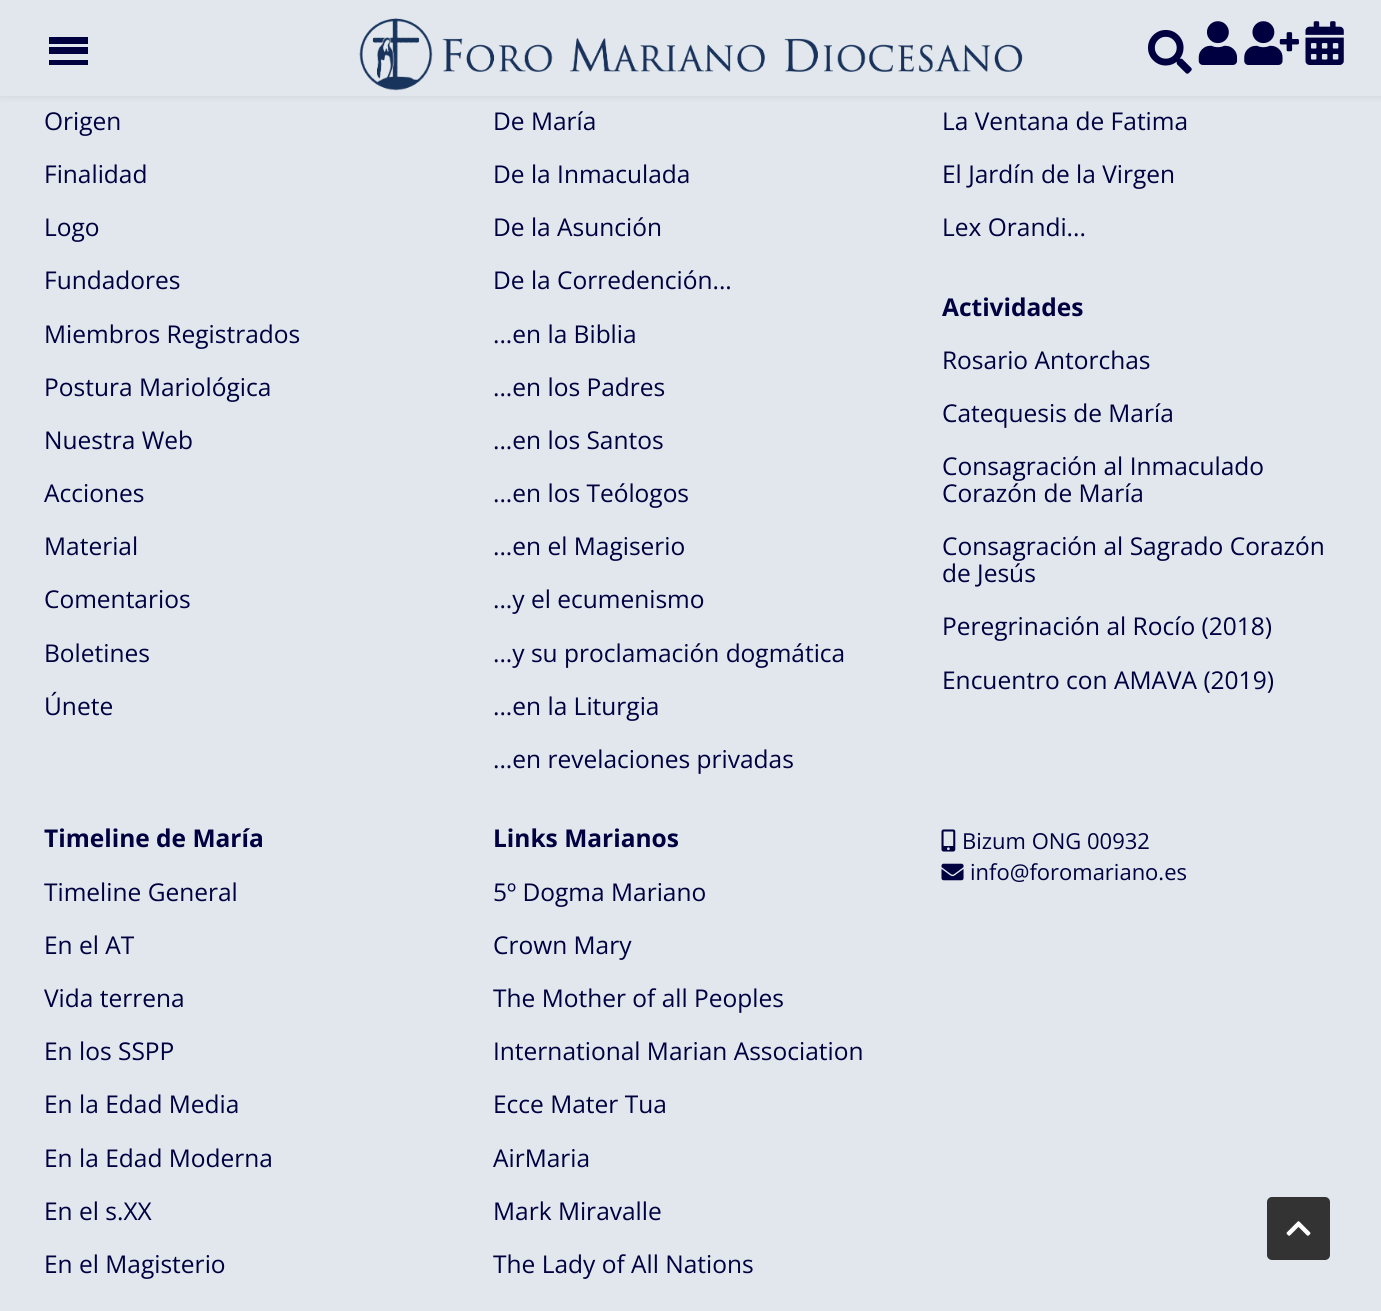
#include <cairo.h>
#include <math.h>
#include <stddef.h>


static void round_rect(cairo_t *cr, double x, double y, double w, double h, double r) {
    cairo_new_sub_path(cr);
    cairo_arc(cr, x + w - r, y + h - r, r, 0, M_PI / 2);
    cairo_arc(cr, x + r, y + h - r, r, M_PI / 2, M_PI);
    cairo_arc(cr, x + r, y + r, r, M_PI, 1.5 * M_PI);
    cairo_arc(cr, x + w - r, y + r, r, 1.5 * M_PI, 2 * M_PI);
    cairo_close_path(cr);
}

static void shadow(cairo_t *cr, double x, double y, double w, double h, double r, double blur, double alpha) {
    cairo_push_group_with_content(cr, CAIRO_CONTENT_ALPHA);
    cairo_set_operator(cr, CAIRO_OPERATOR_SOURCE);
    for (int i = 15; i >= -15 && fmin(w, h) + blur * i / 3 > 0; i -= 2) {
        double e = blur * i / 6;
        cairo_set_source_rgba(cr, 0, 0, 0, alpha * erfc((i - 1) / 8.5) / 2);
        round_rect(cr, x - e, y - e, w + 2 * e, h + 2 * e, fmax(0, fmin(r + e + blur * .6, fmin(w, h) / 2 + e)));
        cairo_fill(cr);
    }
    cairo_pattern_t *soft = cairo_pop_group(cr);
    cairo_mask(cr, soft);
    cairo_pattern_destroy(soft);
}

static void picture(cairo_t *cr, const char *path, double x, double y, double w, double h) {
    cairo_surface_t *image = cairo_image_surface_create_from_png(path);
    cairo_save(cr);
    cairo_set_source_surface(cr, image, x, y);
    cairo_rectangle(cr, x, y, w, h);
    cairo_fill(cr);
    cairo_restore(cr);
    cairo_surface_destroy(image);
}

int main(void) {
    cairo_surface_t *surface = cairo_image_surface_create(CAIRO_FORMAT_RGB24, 1381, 1311);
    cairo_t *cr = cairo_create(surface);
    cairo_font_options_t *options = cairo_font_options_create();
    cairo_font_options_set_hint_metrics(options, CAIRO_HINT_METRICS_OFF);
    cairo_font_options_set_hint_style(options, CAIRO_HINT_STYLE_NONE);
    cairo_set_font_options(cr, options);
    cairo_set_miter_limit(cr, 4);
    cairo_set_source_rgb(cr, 0.882, 0.906, 0.929);
    cairo_paint(cr);
    cairo_set_source_rgb(cr, 0, 0, 0);
    shadow(cr, 0, 0, 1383, 96, 0, 3.5, 0.1);
    cairo_set_source_rgb(cr, 0.882, 0.906, 0.929);
    cairo_rectangle(cr, 0, 0, 1381, 96);
    cairo_fill(cr);
    cairo_set_source_rgb(cr, 0, 0, 0.251);
    cairo_rectangle(cr, 49, 37, 39, 7);
    cairo_fill(cr);
    cairo_rectangle(cr, 49, 47, 39, 7);
    cairo_fill(cr);
    cairo_rectangle(cr, 49, 60, 39, 5);
    cairo_fill(cr);
    picture(cr, "img1.png", 359, 18, 664, 73);
    picture(cr, "img2.png", 1148, 30, 44, 44);
    picture(cr, "img3.png", 1198, 21, 40, 44);
    picture(cr, "img4.png", 1244, 21, 55, 44);
    picture(cr, "img5.png", 1305, 21, 39, 44);
    cairo_select_font_face(cr, "Open Sans", CAIRO_FONT_SLANT_NORMAL, CAIRO_FONT_WEIGHT_NORMAL);
    cairo_set_font_size(cr, 24.5);
    cairo_move_to(cr, 44, 130);
    cairo_show_text(cr, "Origen");
    cairo_move_to(cr, 44, 183);
    cairo_show_text(cr, "Finalidad");
    cairo_move_to(cr, 44, 236);
    cairo_show_text(cr, "Logo");
    cairo_move_to(cr, 44, 289);
    cairo_show_text(cr, "Fundadores");
    cairo_move_to(cr, 44, 343);
    cairo_show_text(cr, "Miembros Registrados");
    cairo_move_to(cr, 44, 396);
    cairo_show_text(cr, "Postura Mariológica");
    cairo_move_to(cr, 44, 449);
    cairo_show_text(cr, "Nuestra Web");
    cairo_move_to(cr, 44, 502);
    cairo_show_text(cr, "Acciones");
    cairo_move_to(cr, 44, 555);
    cairo_show_text(cr, "Material");
    cairo_move_to(cr, 44, 608);
    cairo_show_text(cr, "Comentarios");
    cairo_move_to(cr, 44, 662);
    cairo_show_text(cr, "Boletines");
    cairo_move_to(cr, 44, 715);
    cairo_show_text(cr, "Únete");
    cairo_move_to(cr, 493, 130);
    cairo_show_text(cr, "De María");
    cairo_move_to(cr, 493, 183);
    cairo_show_text(cr, "De la Inmaculada");
    cairo_move_to(cr, 493, 236);
    cairo_show_text(cr, "De la Asunción");
    cairo_move_to(cr, 493, 289);
    cairo_show_text(cr, "De la Corredención...");
    cairo_move_to(cr, 493, 343);
    cairo_show_text(cr, "...en la Biblia");
    cairo_move_to(cr, 493, 396);
    cairo_show_text(cr, "...en los Padres");
    cairo_move_to(cr, 493, 449);
    cairo_show_text(cr, "...en los Santos");
    cairo_move_to(cr, 493, 502);
    cairo_show_text(cr, "...en los Teólogos");
    cairo_move_to(cr, 493, 555);
    cairo_show_text(cr, "...en el Magiserio");
    cairo_move_to(cr, 493, 608);
    cairo_show_text(cr, "...y el ecumenismo");
    cairo_move_to(cr, 493, 662);
    cairo_show_text(cr, "...y su proclamación dogmática");
    cairo_move_to(cr, 493, 715);
    cairo_show_text(cr, "...en la Liturgia");
    cairo_move_to(cr, 493, 768);
    cairo_show_text(cr, "...en revelaciones privadas");
    cairo_move_to(cr, 942, 130);
    cairo_show_text(cr, "La Ventana de Fatima");
    cairo_move_to(cr, 942, 183);
    cairo_show_text(cr, "El Jardín de la Virgen");
    cairo_move_to(cr, 942, 236);
    cairo_show_text(cr, "Lex Orandi...");
    cairo_select_font_face(cr, "Open Sans", CAIRO_FONT_SLANT_NORMAL, CAIRO_FONT_WEIGHT_BOLD);
    cairo_move_to(cr, 942, 316);
    cairo_show_text(cr, "Actividades");
    cairo_select_font_face(cr, "Open Sans", CAIRO_FONT_SLANT_NORMAL, CAIRO_FONT_WEIGHT_NORMAL);
    cairo_move_to(cr, 942, 369);
    cairo_show_text(cr, "Rosario Antorchas");
    cairo_move_to(cr, 942, 422);
    cairo_show_text(cr, "Catequesis de María");
    cairo_move_to(cr, 942, 475);
    cairo_show_text(cr, "Consagración al Inmaculado");
    cairo_move_to(cr, 942, 502);
    cairo_show_text(cr, "Corazón de María");
    cairo_move_to(cr, 942, 555);
    cairo_show_text(cr, "Consagración al Sagrado Corazón");
    cairo_move_to(cr, 942, 582);
    cairo_show_text(cr, "de Jesús");
    cairo_move_to(cr, 942, 635);
    cairo_show_text(cr, "Peregrinación al Rocío (2018)");
    cairo_move_to(cr, 942, 689);
    cairo_show_text(cr, "Encuentro con AMAVA (2019)");
    cairo_select_font_face(cr, "Open Sans", CAIRO_FONT_SLANT_NORMAL, CAIRO_FONT_WEIGHT_BOLD);
    cairo_move_to(cr, 44, 847);
    cairo_show_text(cr, "Timeline de María");
    cairo_select_font_face(cr, "Open Sans", CAIRO_FONT_SLANT_NORMAL, CAIRO_FONT_WEIGHT_NORMAL);
    cairo_move_to(cr, 44, 901);
    cairo_show_text(cr, "Timeline General");
    cairo_move_to(cr, 44, 954);
    cairo_show_text(cr, "En el AT");
    cairo_move_to(cr, 44, 1007);
    cairo_show_text(cr, "Vida terrena");
    cairo_move_to(cr, 44, 1060);
    cairo_show_text(cr, "En los SSPP");
    cairo_move_to(cr, 44, 1113);
    cairo_show_text(cr, "En la Edad Media");
    cairo_move_to(cr, 44, 1167);
    cairo_show_text(cr, "En la Edad Moderna");
    cairo_move_to(cr, 44, 1220);
    cairo_show_text(cr, "En el s.XX");
    cairo_move_to(cr, 44, 1273);
    cairo_show_text(cr, "En el Magisterio");
    cairo_select_font_face(cr, "Open Sans", CAIRO_FONT_SLANT_NORMAL, CAIRO_FONT_WEIGHT_BOLD);
    cairo_move_to(cr, 493, 847);
    cairo_show_text(cr, "Links Marianos");
    cairo_select_font_face(cr, "Open Sans", CAIRO_FONT_SLANT_NORMAL, CAIRO_FONT_WEIGHT_NORMAL);
    cairo_move_to(cr, 493, 901);
    cairo_show_text(cr, "5º Dogma Mariano");
    cairo_move_to(cr, 493, 954);
    cairo_show_text(cr, "Crown Mary");
    cairo_move_to(cr, 493, 1007);
    cairo_show_text(cr, "The Mother of all Peoples");
    cairo_move_to(cr, 493, 1060);
    cairo_show_text(cr, "International Marian Association");
    cairo_move_to(cr, 493, 1113);
    cairo_show_text(cr, "Ecce Mater Tua");
    cairo_move_to(cr, 493, 1167);
    cairo_show_text(cr, "AirMaria");
    cairo_move_to(cr, 493, 1220);
    cairo_show_text(cr, "Mark Miravalle");
    cairo_move_to(cr, 493, 1273);
    cairo_show_text(cr, "The Lady of All Nations");
    picture(cr, "img6.png", 941, 829, 15, 23);
    cairo_set_font_size(cr, 22);
    cairo_move_to(cr, 962, 849);
    cairo_show_text(cr, "Bizum ONG 00932");
    picture(cr, "img7.png", 941, 863, 23, 18);
    cairo_move_to(cr, 970, 880);
    cairo_show_text(cr, "info@foromariano.es");
    cairo_set_source_rgb(cr, 0.2, 0.2, 0.2);
    round_rect(cr, 1267, 1197, 63, 63, 5);
    cairo_fill(cr);
    picture(cr, "img8.png", 1286, 1221, 25, 15);
    cairo_surface_write_to_png(surface, "page.png");
    cairo_font_options_destroy(options);
    cairo_destroy(cr);
    cairo_surface_destroy(surface);
    return 0;
}
